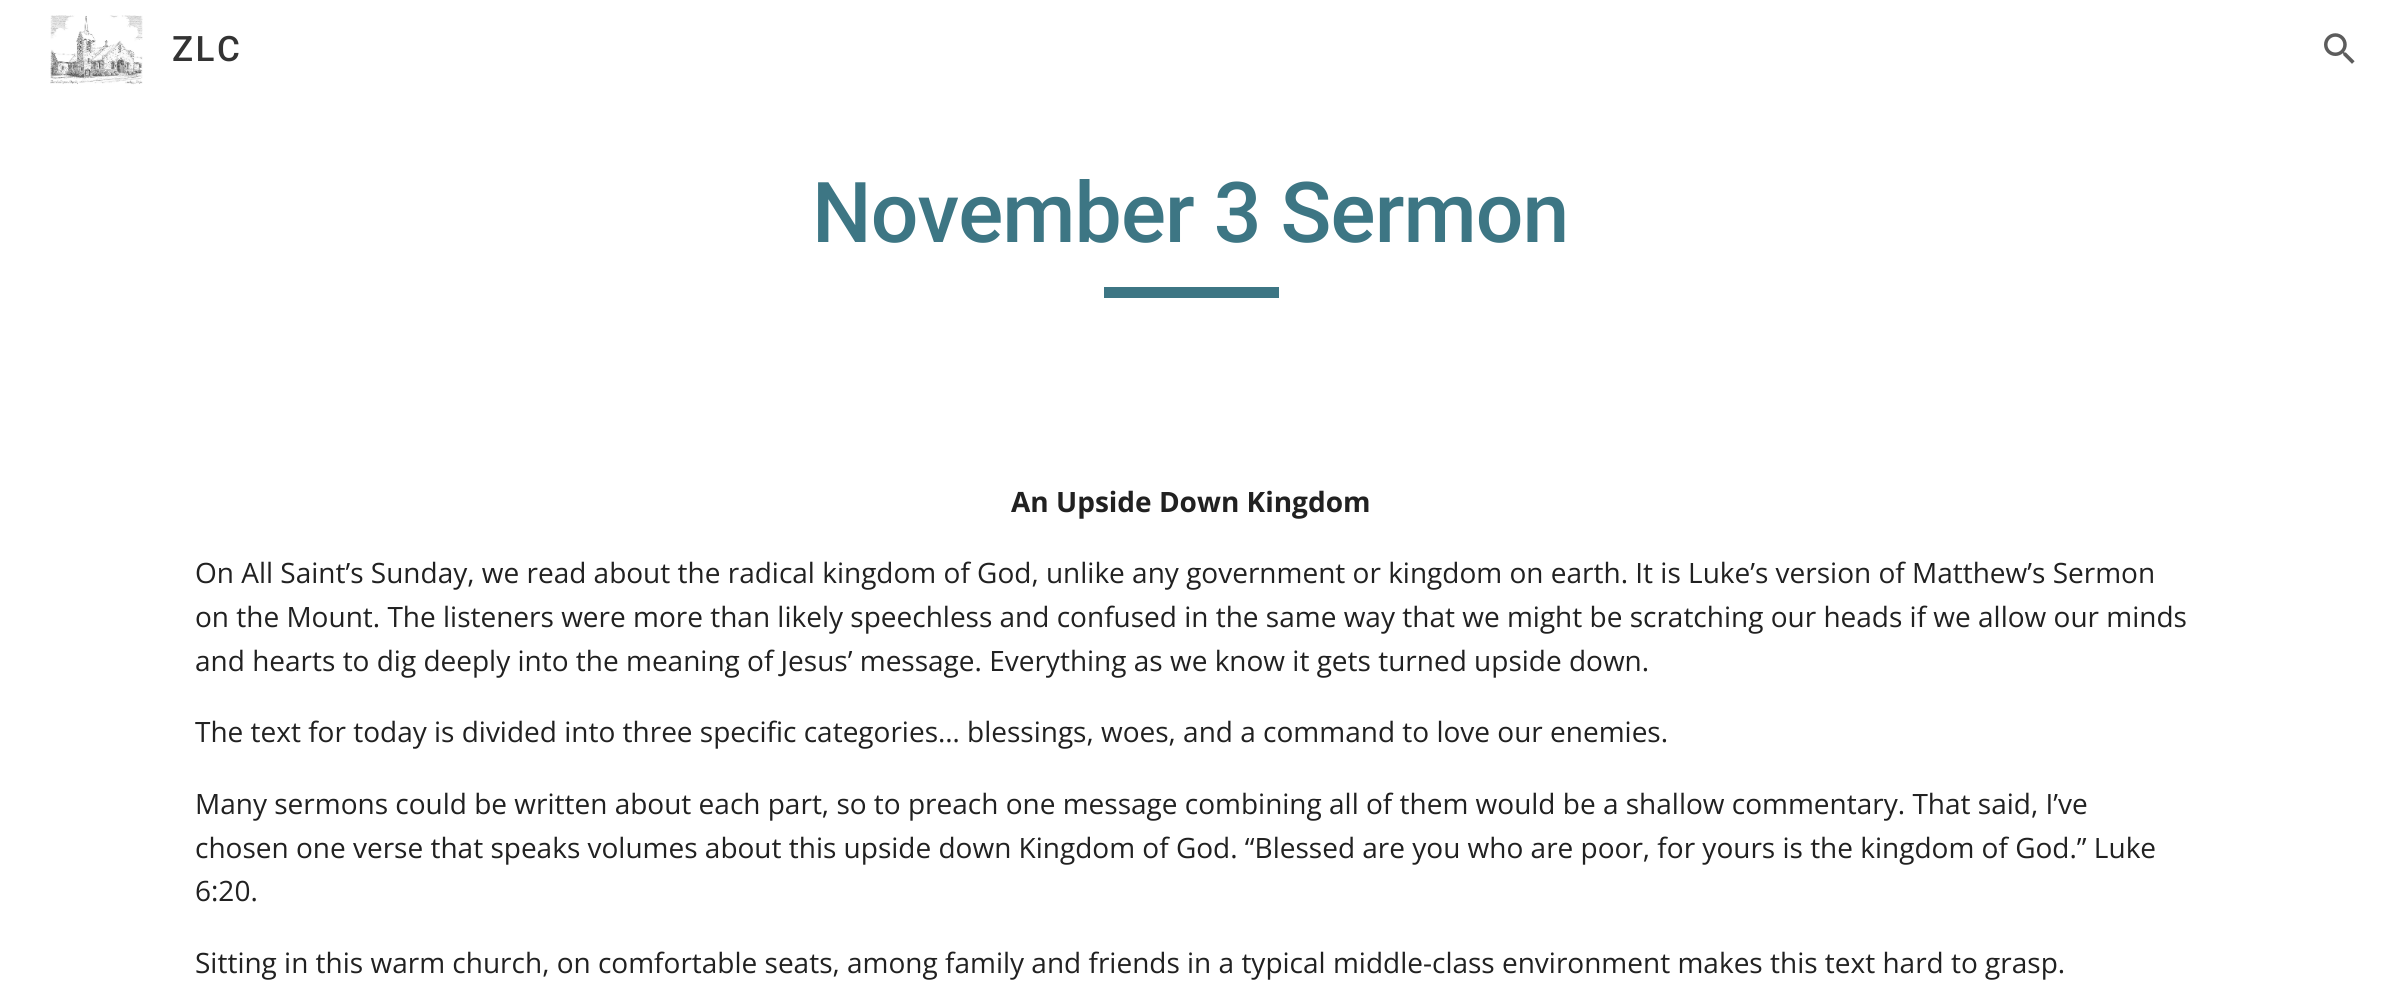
#include <cairo.h>
#include <math.h>
#include <stddef.h>


static void spaced_text(cairo_t *cr, double x, double y, const char *s, double letter, double word) {
    cairo_move_to(cr, x, y);
    while (*s) {
        char ch[5] = {0};
        int n = 0;
        do ch[n++] = *s++; while ((*s & 0xC0) == 0x80);
        cairo_show_text(cr, ch);
        cairo_rel_move_to(cr, letter + word * (*ch == ' '), 0);
    }
}

static void picture(cairo_t *cr, const char *path, double x, double y, double w, double h) {
    cairo_surface_t *image = cairo_image_surface_create_from_png(path);
    cairo_save(cr);
    cairo_set_source_surface(cr, image, x, y);
    cairo_rectangle(cr, x, y, w, h);
    cairo_fill(cr);
    cairo_restore(cr);
    cairo_surface_destroy(image);
}

int main(void) {
    cairo_surface_t *surface = cairo_image_surface_create(CAIRO_FORMAT_RGB24, 2381, 995);
    cairo_t *cr = cairo_create(surface);
    cairo_font_options_t *options = cairo_font_options_create();
    cairo_font_options_set_hint_metrics(options, CAIRO_HINT_METRICS_OFF);
    cairo_font_options_set_hint_style(options, CAIRO_HINT_STYLE_NONE);
    cairo_set_font_options(cr, options);
    cairo_set_miter_limit(cr, 4);
    cairo_set_source_rgb(cr, 1, 1, 1);
    cairo_paint(cr);
    picture(cr, "img1.png", 50, 15, 93, 70);
    cairo_select_font_face(cr, "Roboto Medium", CAIRO_FONT_SLANT_NORMAL, CAIRO_FONT_WEIGHT_NORMAL);
    cairo_set_font_size(cr, 35);
    cairo_set_source_rgb(cr, 0.2, 0.2, 0.2);
    spaced_text(cr, 172, 61, "ZLC", 2.5, 0);
    picture(cr, "img2.png", 2324, 33, 31, 31);
    cairo_set_font_size(cr, 84);
    cairo_set_source_rgb(cr, 0.239, 0.463, 0.518);
    spaced_text(cr, 812, 242, "November 3 Sermon", -0.9, 0);
    cairo_rectangle(cr, 1104, 287, 175, 11);
    cairo_fill(cr);
    cairo_select_font_face(cr, "Open Sans", CAIRO_FONT_SLANT_NORMAL, CAIRO_FONT_WEIGHT_BOLD);
    cairo_set_font_size(cr, 28);
    cairo_set_source_rgb(cr, 0.129, 0.129, 0.129);
    cairo_move_to(cr, 1011, 512);
    cairo_show_text(cr, "An Upside Down Kingdom");
    cairo_select_font_face(cr, "Open Sans", CAIRO_FONT_SLANT_NORMAL, CAIRO_FONT_WEIGHT_NORMAL);
    cairo_move_to(cr, 195, 583);
    cairo_show_text(cr, "On All Saint’s Sunday, we read about the radical kingdom of God, unlike any government or kingdom on earth. It is Luke’s version of Matthew’s Sermon");
    cairo_move_to(cr, 195, 627);
    cairo_show_text(cr, "on the Mount. The listeners were more than likely speechless and confused in the same way that we might be scratching our heads if we allow our minds");
    cairo_move_to(cr, 195, 671);
    cairo_show_text(cr, "and hearts to dig deeply into the meaning of Jesus’ message. Everything as we know it gets turned upside down.");
    cairo_move_to(cr, 195, 742);
    cairo_show_text(cr, "The text for today is divided into three specific categories… blessings, woes, and a command to love our enemies.");
    cairo_move_to(cr, 195, 814);
    cairo_show_text(cr, "Many sermons could be written about each part, so to preach one message combining all of them would be a shallow commentary. That said, I’ve");
    cairo_move_to(cr, 195, 858);
    cairo_show_text(cr, "chosen one verse that speaks volumes about this upside down Kingdom of God. “Blessed are you who are poor, for yours is the kingdom of God.” Luke");
    cairo_move_to(cr, 195, 901);
    cairo_show_text(cr, "6:20.");
    cairo_move_to(cr, 195, 973);
    cairo_show_text(cr, "Sitting in this warm church, on comfortable seats, among family and friends in a typical middle-class environment makes this text hard to grasp.");
    cairo_surface_write_to_png(surface, "page.png");
    cairo_font_options_destroy(options);
    cairo_destroy(cr);
    cairo_surface_destroy(surface);
    return 0;
}
